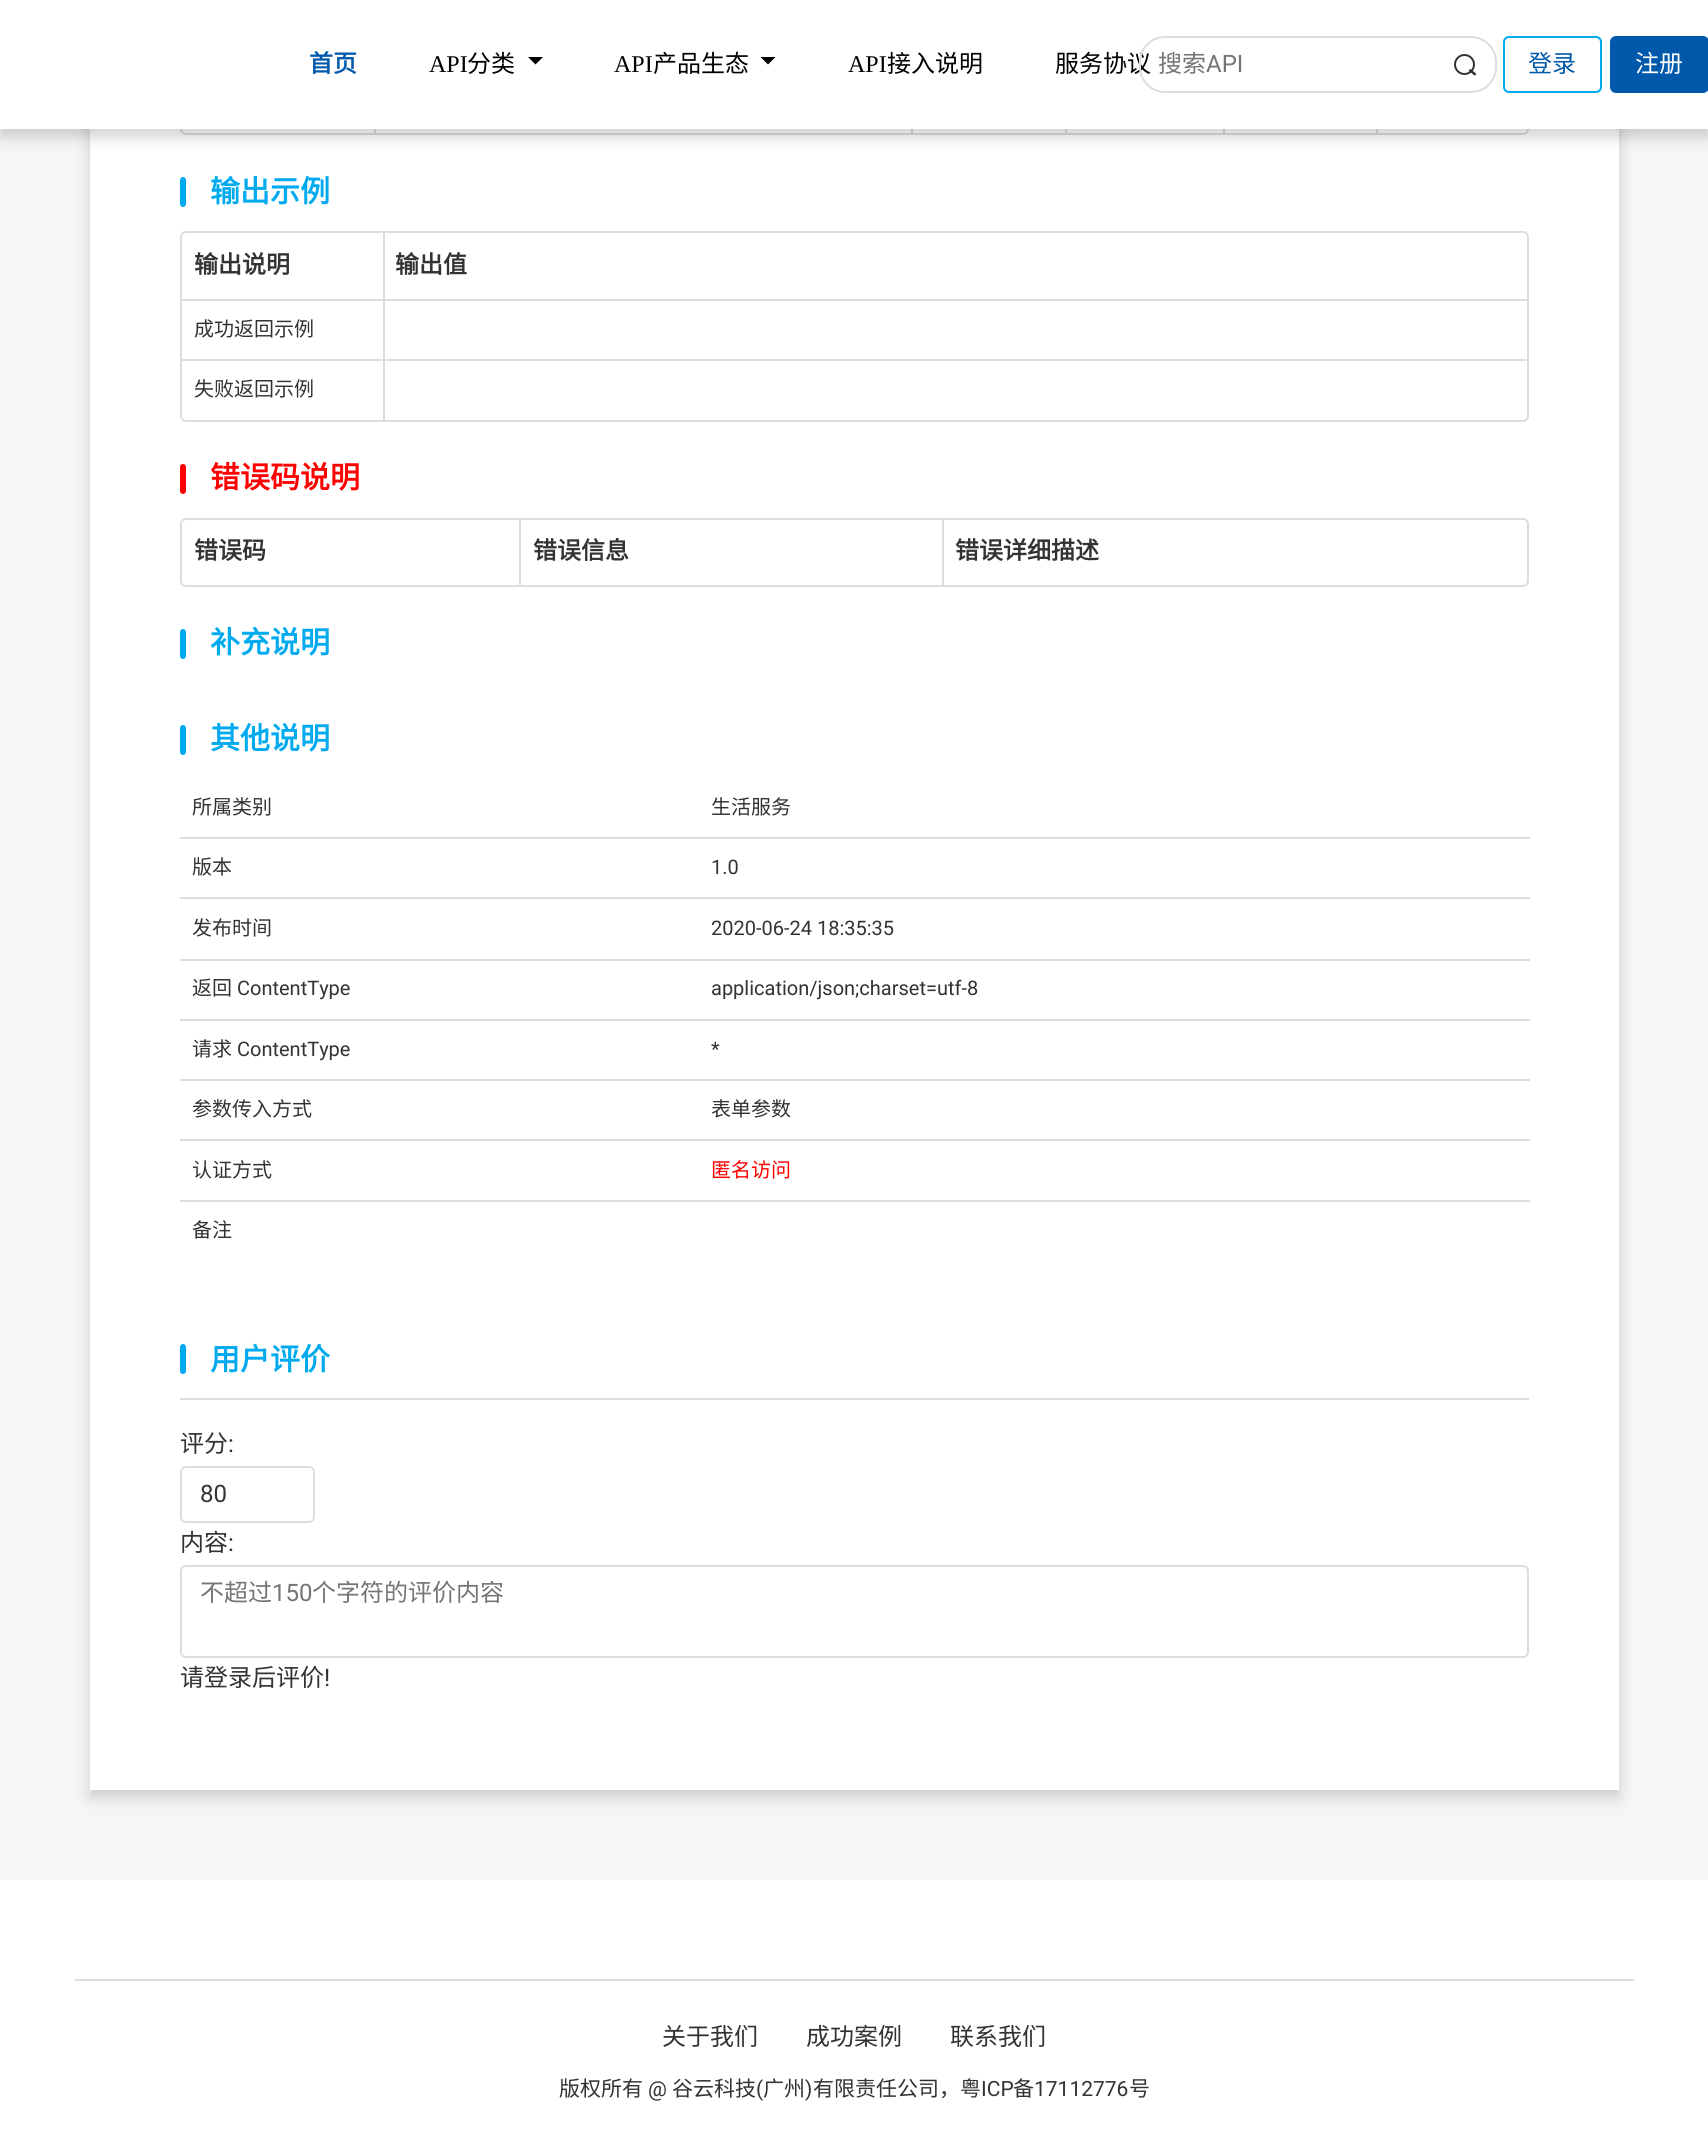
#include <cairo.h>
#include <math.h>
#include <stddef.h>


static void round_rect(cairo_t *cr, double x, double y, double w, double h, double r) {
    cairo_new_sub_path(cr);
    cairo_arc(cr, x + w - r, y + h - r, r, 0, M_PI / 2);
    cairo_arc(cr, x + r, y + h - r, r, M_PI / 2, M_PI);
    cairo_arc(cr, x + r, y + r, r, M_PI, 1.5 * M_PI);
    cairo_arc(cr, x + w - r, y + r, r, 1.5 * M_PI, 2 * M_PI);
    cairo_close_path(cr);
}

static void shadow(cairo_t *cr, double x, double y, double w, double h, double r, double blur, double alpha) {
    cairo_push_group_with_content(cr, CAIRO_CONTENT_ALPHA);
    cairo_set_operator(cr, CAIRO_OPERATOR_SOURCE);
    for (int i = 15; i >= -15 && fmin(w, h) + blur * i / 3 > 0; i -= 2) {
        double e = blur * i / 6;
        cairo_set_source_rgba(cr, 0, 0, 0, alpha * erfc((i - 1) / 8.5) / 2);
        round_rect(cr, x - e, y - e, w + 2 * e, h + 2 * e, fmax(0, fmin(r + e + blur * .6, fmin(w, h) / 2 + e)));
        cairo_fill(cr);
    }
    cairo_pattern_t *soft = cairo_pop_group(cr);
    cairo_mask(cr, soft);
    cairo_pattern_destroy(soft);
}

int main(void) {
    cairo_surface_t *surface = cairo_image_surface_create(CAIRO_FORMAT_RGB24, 1708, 2138);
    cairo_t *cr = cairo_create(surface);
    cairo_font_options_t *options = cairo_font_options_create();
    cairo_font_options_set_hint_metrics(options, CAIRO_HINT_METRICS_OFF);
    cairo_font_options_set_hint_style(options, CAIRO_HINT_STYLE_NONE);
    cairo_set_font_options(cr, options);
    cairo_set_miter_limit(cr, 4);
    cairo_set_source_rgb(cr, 0.961, 0.961, 0.961);
    cairo_paint(cr);
    cairo_set_source_rgb(cr, 0, 0, 0);
    shadow(cr, 90, -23, 1529, 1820, 0, 7.5, 0.18);
    cairo_set_source_rgb(cr, 1, 1, 1);
    cairo_rectangle(cr, 90, 129, 1529, 1661);
    cairo_fill(cr);
    round_rect(cr, 181, -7, 1347, 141, 5);
    cairo_set_source_rgb(cr, 0.867, 0.867, 0.867);
    cairo_stroke(cr);
    cairo_rectangle(cr, 374, 129, 2, 5);
    cairo_fill(cr);
    cairo_rectangle(cr, 911, 129, 2, 5);
    cairo_fill(cr);
    cairo_rectangle(cr, 1065, 129, 2, 5);
    cairo_fill(cr);
    cairo_rectangle(cr, 1223, 129, 2, 5);
    cairo_fill(cr);
    cairo_rectangle(cr, 1376, 129, 2, 5);
    cairo_fill(cr);
    cairo_set_source_rgb(cr, 0, 0, 0);
    shadow(cr, 0, 8, 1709, 129, 0, 7.5, 0.18);
    cairo_set_source_rgb(cr, 1, 1, 1);
    cairo_rectangle(cr, 0, 0, 1708, 129);
    cairo_fill(cr);
    cairo_select_font_face(cr, "Noto Sans CJK SC", CAIRO_FONT_SLANT_NORMAL, CAIRO_FONT_WEIGHT_BOLD);
    cairo_set_font_size(cr, 24);
    cairo_set_source_rgb(cr, 0, 0.349, 0.671);
    cairo_move_to(cr, 309, 72);
    cairo_show_text(cr, "首页");
    cairo_select_font_face(cr, "Liberation Serif", CAIRO_FONT_SLANT_NORMAL, CAIRO_FONT_WEIGHT_NORMAL);
    cairo_set_source_rgb(cr, 0, 0, 0);
    cairo_move_to(cr, 429, 72);
    cairo_show_text(cr, "API");
    cairo_select_font_face(cr, "Noto Sans CJK SC", CAIRO_FONT_SLANT_NORMAL, CAIRO_FONT_WEIGHT_NORMAL);
    cairo_move_to(cr, 467, 72);
    cairo_show_text(cr, "分类");
    cairo_new_path(cr);
    cairo_move_to(cr, 528, 57);
    cairo_line_to(cr, 543, 57);
    cairo_line_to(cr, 535.5, 64.5);
    cairo_close_path(cr);
    cairo_fill(cr);
    cairo_select_font_face(cr, "Liberation Serif", CAIRO_FONT_SLANT_NORMAL, CAIRO_FONT_WEIGHT_NORMAL);
    cairo_move_to(cr, 614, 72);
    cairo_show_text(cr, "API");
    cairo_select_font_face(cr, "Noto Sans CJK SC", CAIRO_FONT_SLANT_NORMAL, CAIRO_FONT_WEIGHT_NORMAL);
    cairo_move_to(cr, 653, 72);
    cairo_show_text(cr, "产品生态");
    cairo_new_path(cr);
    cairo_move_to(cr, 760.5, 57);
    cairo_line_to(cr, 775.5, 57);
    cairo_line_to(cr, 768, 64.5);
    cairo_close_path(cr);
    cairo_fill(cr);
    cairo_select_font_face(cr, "Liberation Serif", CAIRO_FONT_SLANT_NORMAL, CAIRO_FONT_WEIGHT_NORMAL);
    cairo_move_to(cr, 848, 72);
    cairo_show_text(cr, "API");
    cairo_select_font_face(cr, "Noto Sans CJK SC", CAIRO_FONT_SLANT_NORMAL, CAIRO_FONT_WEIGHT_NORMAL);
    cairo_move_to(cr, 887, 72);
    cairo_show_text(cr, "接入说明");
    cairo_move_to(cr, 1055, 72);
    cairo_show_text(cr, "服务协议");
    round_rect(cr, 1140, 37, 356, 55, 25);
    cairo_set_source_rgb(cr, 0.867, 0.867, 0.867);
    cairo_stroke(cr);
    cairo_set_source_rgb(cr, 0.459, 0.459, 0.459);
    cairo_move_to(cr, 1158, 72);
    cairo_show_text(cr, "搜索");
    cairo_select_font_face(cr, "Roboto", CAIRO_FONT_SLANT_NORMAL, CAIRO_FONT_WEIGHT_NORMAL);
    cairo_move_to(cr, 1206, 72);
    cairo_show_text(cr, "API");
    cairo_new_path(cr);
    cairo_arc(cr, 1464.5, 64.5, 9.5, 0, 2 * M_PI);
    cairo_set_source_rgb(cr, 0.2, 0.2, 0.2);
    cairo_stroke(cr);
    cairo_new_path(cr);
    cairo_move_to(cr, 1471, 69.5);
    cairo_line_to(cr, 1476, 73.5);
    cairo_curve_to(cr, 1476.5, 74.5, 1475.5, 75.5, 1474.5, 75.5);
    cairo_line_to(cr, 1469, 71);
    cairo_curve_to(cr, 1468.5, 70, 1470, 68.5, 1471, 69.5);
    cairo_close_path(cr);
    cairo_fill(cr);
    round_rect(cr, 1504, 37, 97, 55, 5);
    cairo_set_source_rgb(cr, 0, 0.667, 0.933);
    cairo_stroke(cr);
    cairo_select_font_face(cr, "Noto Sans CJK SC", CAIRO_FONT_SLANT_NORMAL, CAIRO_FONT_WEIGHT_NORMAL);
    cairo_set_source_rgb(cr, 0, 0.349, 0.671);
    cairo_move_to(cr, 1528, 72);
    cairo_show_text(cr, "登录");
    round_rect(cr, 1610, 36, 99, 57, 6);
    cairo_fill(cr);
    cairo_set_source_rgb(cr, 1, 1, 1);
    cairo_move_to(cr, 1635, 72);
    cairo_show_text(cr, "注册");
    cairo_set_source_rgb(cr, 0, 0.667, 0.933);
    round_rect(cr, 180, 177, 6, 30, 3);
    cairo_fill(cr);
    cairo_select_font_face(cr, "Noto Sans CJK SC", CAIRO_FONT_SLANT_NORMAL, CAIRO_FONT_WEIGHT_BOLD);
    cairo_set_font_size(cr, 30);
    cairo_move_to(cr, 210, 202);
    cairo_show_text(cr, "输出示例");
    round_rect(cr, 181, 232, 1347, 189, 5);
    cairo_set_source_rgb(cr, 0.867, 0.867, 0.867);
    cairo_stroke(cr);
    cairo_rectangle(cr, 383, 233, 2, 66);
    cairo_fill(cr);
    cairo_set_font_size(cr, 24);
    cairo_set_source_rgb(cr, 0.2, 0.2, 0.2);
    cairo_move_to(cr, 194, 273);
    cairo_show_text(cr, "输出说明");
    cairo_move_to(cr, 395, 273);
    cairo_show_text(cr, "输出值");
    cairo_set_source_rgb(cr, 0.867, 0.867, 0.867);
    cairo_rectangle(cr, 182, 299, 202, 2);
    cairo_fill(cr);
    cairo_rectangle(cr, 383, 299, 2, 60);
    cairo_fill(cr);
    cairo_rectangle(cr, 384, 299, 1143, 2);
    cairo_fill(cr);
    cairo_select_font_face(cr, "Noto Sans CJK SC", CAIRO_FONT_SLANT_NORMAL, CAIRO_FONT_WEIGHT_NORMAL);
    cairo_set_font_size(cr, 20);
    cairo_set_source_rgb(cr, 0.2, 0.2, 0.2);
    cairo_move_to(cr, 194, 336);
    cairo_show_text(cr, "成功返回示例");
    cairo_set_source_rgb(cr, 0.867, 0.867, 0.867);
    cairo_rectangle(cr, 182, 359, 202, 2);
    cairo_fill(cr);
    cairo_rectangle(cr, 383, 359, 2, 61);
    cairo_fill(cr);
    cairo_rectangle(cr, 384, 359, 1143, 2);
    cairo_fill(cr);
    cairo_set_source_rgb(cr, 0.2, 0.2, 0.2);
    cairo_move_to(cr, 194, 396);
    cairo_show_text(cr, "失败返回示例");
    cairo_set_source_rgb(cr, 1, 0, 0);
    round_rect(cr, 180, 464, 6, 30, 3);
    cairo_fill(cr);
    cairo_select_font_face(cr, "Noto Sans CJK SC", CAIRO_FONT_SLANT_NORMAL, CAIRO_FONT_WEIGHT_BOLD);
    cairo_set_font_size(cr, 30);
    cairo_move_to(cr, 210, 488);
    cairo_show_text(cr, "错误码说明");
    round_rect(cr, 181, 519, 1347, 67, 5);
    cairo_set_source_rgb(cr, 0.867, 0.867, 0.867);
    cairo_stroke(cr);
    cairo_rectangle(cr, 519, 519, 2, 66);
    cairo_fill(cr);
    cairo_set_font_size(cr, 24);
    cairo_set_source_rgb(cr, 0.2, 0.2, 0.2);
    cairo_move_to(cr, 194, 559);
    cairo_show_text(cr, "错误码");
    cairo_set_source_rgb(cr, 0.867, 0.867, 0.867);
    cairo_rectangle(cr, 942, 519, 2, 66);
    cairo_fill(cr);
    cairo_set_source_rgb(cr, 0.2, 0.2, 0.2);
    cairo_move_to(cr, 533, 559);
    cairo_show_text(cr, "错误信息");
    cairo_move_to(cr, 955, 559);
    cairo_show_text(cr, "错误详细描述");
    cairo_set_source_rgb(cr, 0, 0.667, 0.933);
    round_rect(cr, 180, 629, 6, 30, 3);
    cairo_fill(cr);
    cairo_set_font_size(cr, 30);
    cairo_move_to(cr, 210, 653);
    cairo_show_text(cr, "补充说明");
    round_rect(cr, 180, 725, 6, 30, 3);
    cairo_fill(cr);
    cairo_move_to(cr, 210, 749);
    cairo_show_text(cr, "其他说明");
    cairo_select_font_face(cr, "Noto Sans CJK SC", CAIRO_FONT_SLANT_NORMAL, CAIRO_FONT_WEIGHT_NORMAL);
    cairo_set_font_size(cr, 20);
    cairo_set_source_rgb(cr, 0.2, 0.2, 0.2);
    cairo_move_to(cr, 192, 814);
    cairo_show_text(cr, "所属类别");
    cairo_move_to(cr, 711, 814);
    cairo_show_text(cr, "生活服务");
    cairo_move_to(cr, 192, 874);
    cairo_show_text(cr, "版本");
    cairo_set_source_rgb(cr, 0.867, 0.867, 0.867);
    cairo_rectangle(cr, 180, 837, 1350, 2);
    cairo_fill(cr);
    cairo_select_font_face(cr, "Roboto", CAIRO_FONT_SLANT_NORMAL, CAIRO_FONT_WEIGHT_NORMAL);
    cairo_set_source_rgb(cr, 0.2, 0.2, 0.2);
    cairo_move_to(cr, 711, 874);
    cairo_show_text(cr, "1.0");
    cairo_select_font_face(cr, "Noto Sans CJK SC", CAIRO_FONT_SLANT_NORMAL, CAIRO_FONT_WEIGHT_NORMAL);
    cairo_move_to(cr, 192, 935);
    cairo_show_text(cr, "发布时间");
    cairo_set_source_rgb(cr, 0.867, 0.867, 0.867);
    cairo_rectangle(cr, 180, 897, 1350, 2);
    cairo_fill(cr);
    cairo_select_font_face(cr, "Roboto", CAIRO_FONT_SLANT_NORMAL, CAIRO_FONT_WEIGHT_NORMAL);
    cairo_set_source_rgb(cr, 0.2, 0.2, 0.2);
    cairo_move_to(cr, 711, 935);
    cairo_show_text(cr, "2020-06-24 18:35:35");
    cairo_select_font_face(cr, "Noto Sans CJK SC", CAIRO_FONT_SLANT_NORMAL, CAIRO_FONT_WEIGHT_NORMAL);
    cairo_move_to(cr, 192, 995);
    cairo_show_text(cr, "返回");
    cairo_select_font_face(cr, "Roboto", CAIRO_FONT_SLANT_NORMAL, CAIRO_FONT_WEIGHT_NORMAL);
    cairo_move_to(cr, 237, 995);
    cairo_show_text(cr, "ContentType");
    cairo_set_source_rgb(cr, 0.867, 0.867, 0.867);
    cairo_rectangle(cr, 180, 959, 1350, 2);
    cairo_fill(cr);
    cairo_set_source_rgb(cr, 0.2, 0.2, 0.2);
    cairo_move_to(cr, 711, 995);
    cairo_show_text(cr, "application/json;charset=utf-8");
    cairo_select_font_face(cr, "Noto Sans CJK SC", CAIRO_FONT_SLANT_NORMAL, CAIRO_FONT_WEIGHT_NORMAL);
    cairo_move_to(cr, 192, 1056);
    cairo_show_text(cr, "请求");
    cairo_select_font_face(cr, "Roboto", CAIRO_FONT_SLANT_NORMAL, CAIRO_FONT_WEIGHT_NORMAL);
    cairo_move_to(cr, 237, 1056);
    cairo_show_text(cr, "ContentType");
    cairo_set_source_rgb(cr, 0.867, 0.867, 0.867);
    cairo_rectangle(cr, 180, 1019, 1350, 2);
    cairo_fill(cr);
    cairo_set_source_rgb(cr, 0.2, 0.2, 0.2);
    cairo_move_to(cr, 711, 1056);
    cairo_show_text(cr, "*");
    cairo_select_font_face(cr, "Noto Sans CJK SC", CAIRO_FONT_SLANT_NORMAL, CAIRO_FONT_WEIGHT_NORMAL);
    cairo_move_to(cr, 192, 1116);
    cairo_show_text(cr, "参数传入方式");
    cairo_set_source_rgb(cr, 0.867, 0.867, 0.867);
    cairo_rectangle(cr, 180, 1079, 1350, 2);
    cairo_fill(cr);
    cairo_set_source_rgb(cr, 0.2, 0.2, 0.2);
    cairo_move_to(cr, 711, 1116);
    cairo_show_text(cr, "表单参数");
    cairo_move_to(cr, 192, 1177);
    cairo_show_text(cr, "认证方式");
    cairo_set_source_rgb(cr, 0.867, 0.867, 0.867);
    cairo_rectangle(cr, 180, 1139, 1350, 2);
    cairo_fill(cr);
    cairo_set_source_rgb(cr, 1, 0, 0);
    cairo_move_to(cr, 711, 1177);
    cairo_show_text(cr, "匿名访问");
    cairo_set_source_rgb(cr, 0.867, 0.867, 0.867);
    cairo_rectangle(cr, 180, 1200, 1350, 2);
    cairo_fill(cr);
    cairo_set_source_rgb(cr, 0.2, 0.2, 0.2);
    cairo_move_to(cr, 192, 1237);
    cairo_show_text(cr, "备注");
    cairo_set_source_rgb(cr, 0, 0.667, 0.933);
    round_rect(cr, 180, 1344, 6, 30, 3);
    cairo_fill(cr);
    cairo_select_font_face(cr, "Noto Sans CJK SC", CAIRO_FONT_SLANT_NORMAL, CAIRO_FONT_WEIGHT_BOLD);
    cairo_set_font_size(cr, 30);
    cairo_move_to(cr, 210, 1370);
    cairo_show_text(cr, "用户评价");
    cairo_set_source_rgb(cr, 0.867, 0.867, 0.867);
    cairo_rectangle(cr, 180, 1398, 1349, 2);
    cairo_fill(cr);
    cairo_select_font_face(cr, "Noto Sans CJK SC", CAIRO_FONT_SLANT_NORMAL, CAIRO_FONT_WEIGHT_NORMAL);
    cairo_set_font_size(cr, 24);
    cairo_set_source_rgb(cr, 0.2, 0.2, 0.2);
    cairo_move_to(cr, 180, 1452);
    cairo_show_text(cr, "评分");
    cairo_select_font_face(cr, "Roboto", CAIRO_FONT_SLANT_NORMAL, CAIRO_FONT_WEIGHT_NORMAL);
    cairo_move_to(cr, 228, 1452);
    cairo_show_text(cr, ":");
    round_rect(cr, 181, 1467, 133, 55, 5);
    cairo_set_source_rgb(cr, 0.867, 0.867, 0.867);
    cairo_stroke(cr);
    cairo_set_source_rgb(cr, 0.2, 0.2, 0.2);
    cairo_move_to(cr, 200, 1502);
    cairo_show_text(cr, "80");
    cairo_select_font_face(cr, "Noto Sans CJK SC", CAIRO_FONT_SLANT_NORMAL, CAIRO_FONT_WEIGHT_NORMAL);
    cairo_move_to(cr, 180, 1551);
    cairo_show_text(cr, "内容");
    cairo_select_font_face(cr, "Roboto", CAIRO_FONT_SLANT_NORMAL, CAIRO_FONT_WEIGHT_NORMAL);
    cairo_move_to(cr, 228, 1551);
    cairo_show_text(cr, ":");
    round_rect(cr, 181, 1566, 1347, 91, 5);
    cairo_set_source_rgb(cr, 0.867, 0.867, 0.867);
    cairo_stroke(cr);
    cairo_select_font_face(cr, "Noto Sans CJK SC", CAIRO_FONT_SLANT_NORMAL, CAIRO_FONT_WEIGHT_NORMAL);
    cairo_set_source_rgb(cr, 0.459, 0.459, 0.459);
    cairo_move_to(cr, 200, 1601);
    cairo_show_text(cr, "不超过");
    cairo_select_font_face(cr, "Roboto", CAIRO_FONT_SLANT_NORMAL, CAIRO_FONT_WEIGHT_NORMAL);
    cairo_move_to(cr, 272, 1601);
    cairo_show_text(cr, "150");
    cairo_select_font_face(cr, "Noto Sans CJK SC", CAIRO_FONT_SLANT_NORMAL, CAIRO_FONT_WEIGHT_NORMAL);
    cairo_move_to(cr, 312, 1601);
    cairo_show_text(cr, "个字符的评价内容");
    cairo_set_source_rgb(cr, 0.2, 0.2, 0.2);
    cairo_move_to(cr, 180, 1686);
    cairo_show_text(cr, "请登录后评价");
    cairo_select_font_face(cr, "Roboto", CAIRO_FONT_SLANT_NORMAL, CAIRO_FONT_WEIGHT_NORMAL);
    cairo_move_to(cr, 324, 1686);
    cairo_show_text(cr, "!");
    cairo_set_source_rgb(cr, 1, 1, 1);
    cairo_rectangle(cr, 0, 1880, 1708, 258);
    cairo_fill(cr);
    cairo_set_source_rgb(cr, 0.867, 0.867, 0.867);
    cairo_rectangle(cr, 75, 1979, 1559, 2);
    cairo_fill(cr);
    cairo_select_font_face(cr, "Noto Sans CJK SC", CAIRO_FONT_SLANT_NORMAL, CAIRO_FONT_WEIGHT_NORMAL);
    cairo_set_source_rgb(cr, 0.2, 0.2, 0.2);
    cairo_move_to(cr, 662, 2045);
    cairo_show_text(cr, "关于我们");
    cairo_move_to(cr, 806, 2045);
    cairo_show_text(cr, "成功案例");
    cairo_move_to(cr, 950, 2045);
    cairo_show_text(cr, "联系我们");
    cairo_set_font_size(cr, 21);
    cairo_move_to(cr, 559, 2096);
    cairo_show_text(cr, "版权所有");
    cairo_select_font_face(cr, "Roboto", CAIRO_FONT_SLANT_NORMAL, CAIRO_FONT_WEIGHT_NORMAL);
    cairo_move_to(cr, 648, 2096);
    cairo_show_text(cr, "@");
    cairo_select_font_face(cr, "Noto Sans CJK SC", CAIRO_FONT_SLANT_NORMAL, CAIRO_FONT_WEIGHT_NORMAL);
    cairo_move_to(cr, 672, 2096);
    cairo_show_text(cr, "谷云科技");
    cairo_select_font_face(cr, "Roboto", CAIRO_FONT_SLANT_NORMAL, CAIRO_FONT_WEIGHT_NORMAL);
    cairo_move_to(cr, 756, 2096);
    cairo_show_text(cr, "(");
    cairo_select_font_face(cr, "Noto Sans CJK SC", CAIRO_FONT_SLANT_NORMAL, CAIRO_FONT_WEIGHT_NORMAL);
    cairo_move_to(cr, 763, 2096);
    cairo_show_text(cr, "广州");
    cairo_select_font_face(cr, "Roboto", CAIRO_FONT_SLANT_NORMAL, CAIRO_FONT_WEIGHT_NORMAL);
    cairo_move_to(cr, 805, 2096);
    cairo_show_text(cr, ")");
    cairo_select_font_face(cr, "Noto Sans CJK SC", CAIRO_FONT_SLANT_NORMAL, CAIRO_FONT_WEIGHT_NORMAL);
    cairo_move_to(cr, 813, 2096);
    cairo_show_text(cr, "有限责任公司，粤");
    cairo_select_font_face(cr, "Roboto", CAIRO_FONT_SLANT_NORMAL, CAIRO_FONT_WEIGHT_NORMAL);
    cairo_move_to(cr, 981, 2096);
    cairo_show_text(cr, "ICP");
    cairo_select_font_face(cr, "Noto Sans CJK SC", CAIRO_FONT_SLANT_NORMAL, CAIRO_FONT_WEIGHT_NORMAL);
    cairo_move_to(cr, 1013, 2096);
    cairo_show_text(cr, "备");
    cairo_select_font_face(cr, "Roboto", CAIRO_FONT_SLANT_NORMAL, CAIRO_FONT_WEIGHT_NORMAL);
    cairo_move_to(cr, 1034, 2096);
    cairo_show_text(cr, "17112776");
    cairo_select_font_face(cr, "Noto Sans CJK SC", CAIRO_FONT_SLANT_NORMAL, CAIRO_FONT_WEIGHT_NORMAL);
    cairo_move_to(cr, 1129, 2096);
    cairo_show_text(cr, "号");
    cairo_surface_write_to_png(surface, "page.png");
    cairo_font_options_destroy(options);
    cairo_destroy(cr);
    cairo_surface_destroy(surface);
    return 0;
}
